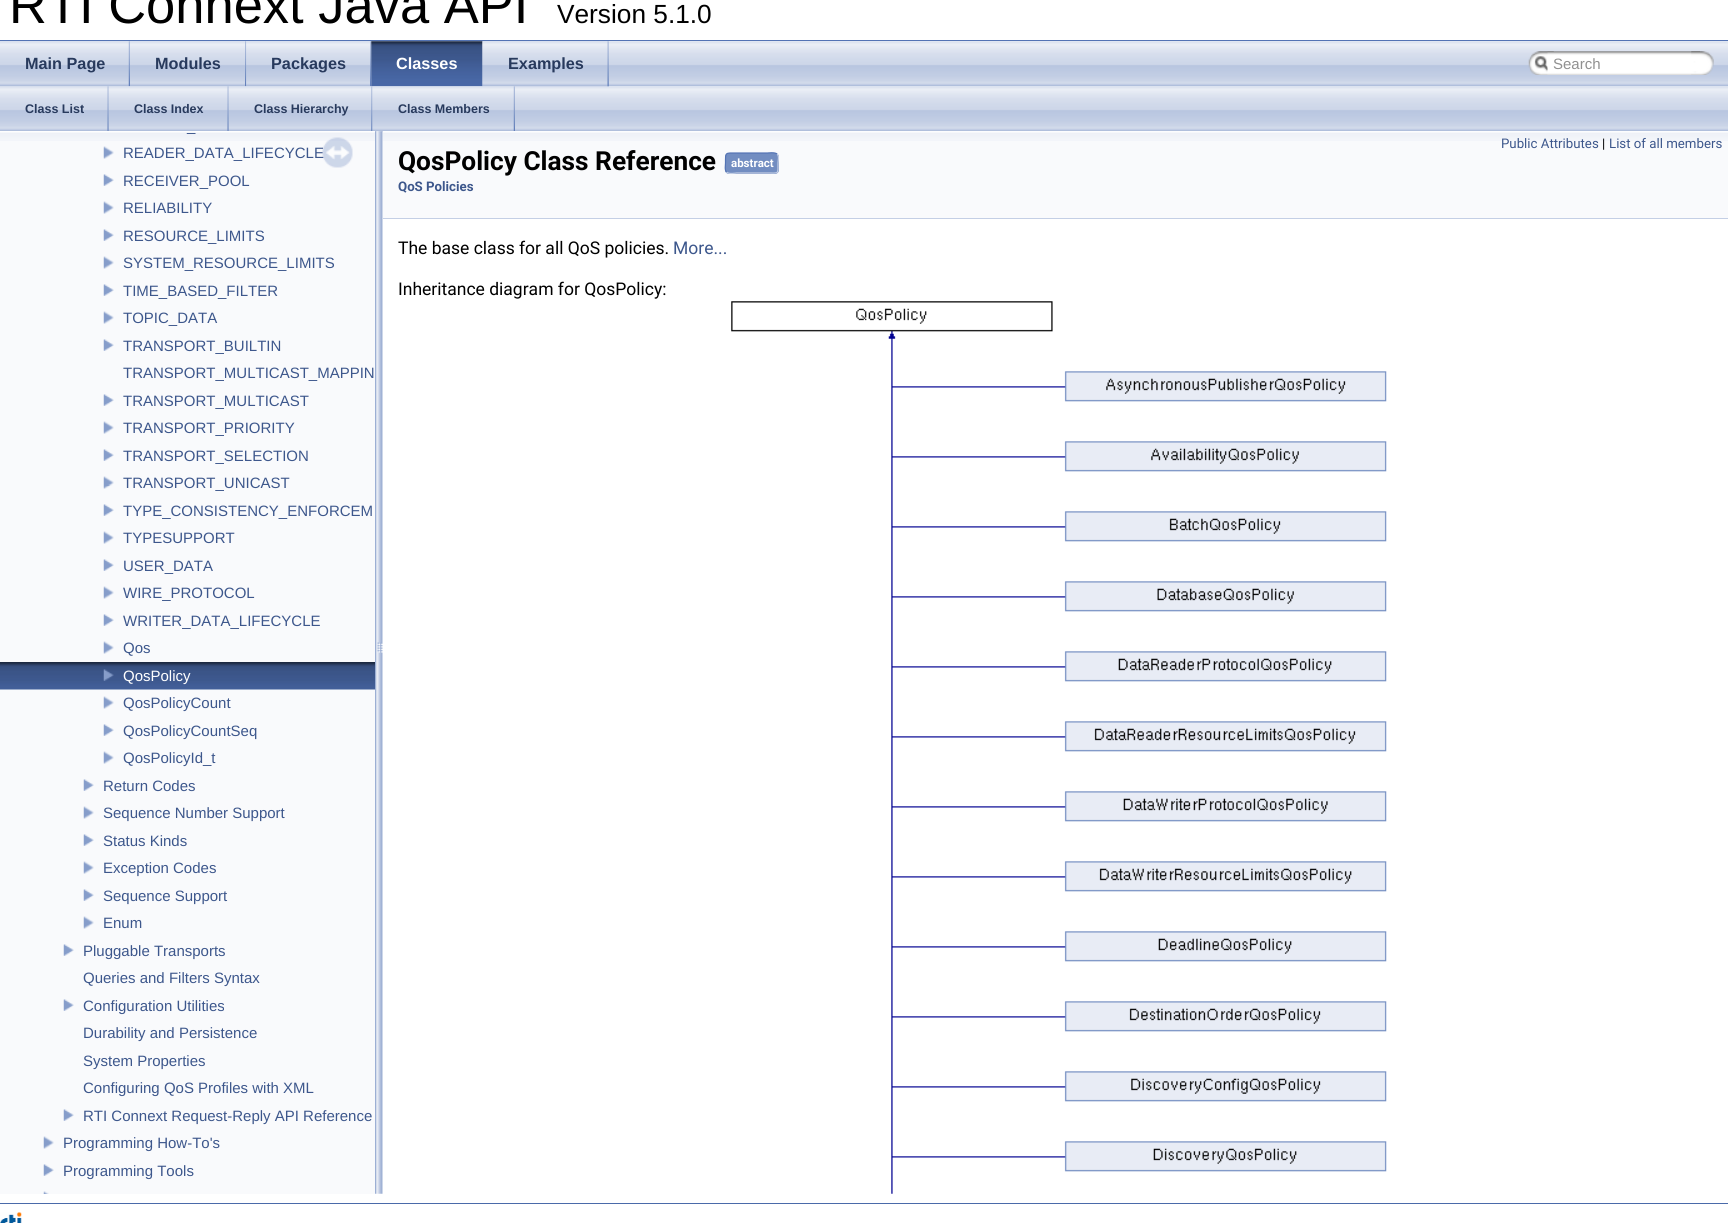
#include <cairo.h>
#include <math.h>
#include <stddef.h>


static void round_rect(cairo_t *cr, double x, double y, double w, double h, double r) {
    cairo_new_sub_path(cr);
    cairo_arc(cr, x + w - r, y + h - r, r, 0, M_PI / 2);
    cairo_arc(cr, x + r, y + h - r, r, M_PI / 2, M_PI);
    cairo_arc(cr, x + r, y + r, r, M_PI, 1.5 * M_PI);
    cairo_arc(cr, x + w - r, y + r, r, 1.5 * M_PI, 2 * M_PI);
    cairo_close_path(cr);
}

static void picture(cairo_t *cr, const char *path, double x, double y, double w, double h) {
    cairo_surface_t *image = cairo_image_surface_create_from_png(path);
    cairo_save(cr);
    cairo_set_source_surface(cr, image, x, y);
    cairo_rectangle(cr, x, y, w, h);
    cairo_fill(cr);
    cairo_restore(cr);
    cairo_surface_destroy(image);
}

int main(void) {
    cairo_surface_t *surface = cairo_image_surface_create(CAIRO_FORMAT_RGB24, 1728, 1223);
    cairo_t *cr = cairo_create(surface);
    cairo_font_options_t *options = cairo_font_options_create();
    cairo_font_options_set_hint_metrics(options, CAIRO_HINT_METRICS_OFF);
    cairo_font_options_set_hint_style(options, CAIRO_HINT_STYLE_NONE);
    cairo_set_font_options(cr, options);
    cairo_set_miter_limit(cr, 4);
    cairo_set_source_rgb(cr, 1, 1, 1);
    cairo_paint(cr);
    cairo_set_source_rgb(cr, 0.325, 0.451, 0.706);
    cairo_rectangle(cr, 0, 40, 1728, 1);
    cairo_fill(cr);
    cairo_select_font_face(cr, "Liberation Sans", CAIRO_FONT_SLANT_NORMAL, CAIRO_FONT_WEIGHT_NORMAL);
    cairo_set_font_size(cr, 52.5);
    cairo_set_source_rgb(cr, 0, 0, 0);
    cairo_move_to(cr, 9, 23);
    cairo_show_text(cr, "RTI Connext Java API");
    cairo_set_font_size(cr, 26.25);
    cairo_move_to(cr, 557, 23);
    cairo_show_text(cr, "Version 5.1.0");
    picture(cr, "img1.png", 0, 41, 1728, 46);
    picture(cr, "img15.png", 0, 86, 1728, 46);
    picture(cr, "img2.png", 0, 41, 130, 46);
    picture(cr, "img3.png", 128, 41, 2, 46);
    cairo_select_font_face(cr, "Liberation Sans", CAIRO_FONT_SLANT_NORMAL, CAIRO_FONT_WEIGHT_BOLD);
    cairo_set_font_size(cr, 16.25);
    cairo_set_source_rgb(cr, 0.157, 0.227, 0.365);
    cairo_move_to(cr, 25, 69);
    cairo_show_text(cr, "Main Page");
    picture(cr, "img4.png", 130, 41, 116, 46);
    picture(cr, "img5.png", 245, 41, 2, 46);
    cairo_move_to(cr, 155, 69);
    cairo_show_text(cr, "Modules");
    picture(cr, "img6.png", 246, 41, 125, 46);
    picture(cr, "img5.png", 370, 41, 2, 46);
    cairo_move_to(cr, 271, 69);
    cairo_show_text(cr, "Packages");
    picture(cr, "img7.png", 371, 41, 112, 46);
    picture(cr, "img8.png", 371, 41, 112, 46);
    cairo_set_source_rgb(cr, 1, 1, 1);
    cairo_move_to(cr, 396, 69);
    cairo_show_text(cr, "Classes");
    picture(cr, "img9.png", 482, 41, 127, 46);
    picture(cr, "img10.png", 607, 41, 2, 46);
    cairo_set_source_rgb(cr, 0.157, 0.227, 0.365);
    cairo_move_to(cr, 508, 69);
    cairo_show_text(cr, "Examples");
    picture(cr, "img11.png", 1528, 51, 26, 24);
    picture(cr, "img12.png", 1534, 56, 14, 16);
    picture(cr, "img13.png", 1547, 51, 153, 24);
    cairo_select_font_face(cr, "Liberation Sans", CAIRO_FONT_SLANT_NORMAL, CAIRO_FONT_WEIGHT_NORMAL);
    cairo_set_font_size(cr, 15);
    cairo_set_source_rgb(cr, 0.565, 0.565, 0.565);
    cairo_move_to(cr, 1553, 69);
    cairo_show_text(cr, "Search");
    picture(cr, "img14.png", 1691, 51, 23, 24);
    picture(cr, "img16.png", 0, 86, 109, 45);
    picture(cr, "img17.png", 107, 86, 2, 45);
    cairo_select_font_face(cr, "Liberation Sans", CAIRO_FONT_SLANT_NORMAL, CAIRO_FONT_WEIGHT_BOLD);
    cairo_set_font_size(cr, 12.5);
    cairo_set_source_rgb(cr, 0.157, 0.227, 0.365);
    cairo_move_to(cr, 25, 113);
    cairo_show_text(cr, "Class List");
    picture(cr, "img18.png", 108, 86, 121, 45);
    picture(cr, "img17.png", 227, 86, 2, 45);
    cairo_move_to(cr, 134, 113);
    cairo_show_text(cr, "Class Index");
    picture(cr, "img19.png", 228, 86, 145, 45);
    picture(cr, "img20.png", 371, 86, 2, 45);
    cairo_move_to(cr, 254, 113);
    cairo_show_text(cr, "Class Hierarchy");
    picture(cr, "img21.png", 372, 86, 143, 46);
    picture(cr, "img22.png", 513, 86, 2, 45);
    cairo_move_to(cr, 398, 113);
    cairo_show_text(cr, "Class Members");
    cairo_set_source_rgb(cr, 0.976, 0.98, 0.988);
    cairo_rectangle(cr, 0, 131, 375, 1063);
    cairo_fill(cr);
    picture(cr, "img23.png", 0, 131, 375, 10);
    cairo_select_font_face(cr, "Liberation Sans", CAIRO_FONT_SLANT_NORMAL, CAIRO_FONT_WEIGHT_NORMAL);
    cairo_set_font_size(cr, 15);
    cairo_set_source_rgb(cr, 0.239, 0.341, 0.549);
    cairo_move_to(cr, 187, 131);
    cairo_show_text(cr, "_");
    picture(cr, "img24.png", 103, 146, 11, 13);
    cairo_move_to(cr, 123, 158);
    cairo_show_text(cr, "READER_DATA_LIFECYCLE");
    picture(cr, "img25.png", 103, 174, 11, 12);
    cairo_move_to(cr, 123, 186);
    cairo_show_text(cr, "RECEIVER_POOL");
    picture(cr, "img24.png", 103, 201, 11, 13);
    cairo_move_to(cr, 123, 213);
    cairo_show_text(cr, "RELIABILITY");
    picture(cr, "img25.png", 103, 229, 11, 12);
    cairo_move_to(cr, 123, 241);
    cairo_show_text(cr, "RESOURCE_LIMITS");
    picture(cr, "img24.png", 103, 256, 11, 13);
    cairo_move_to(cr, 123, 268);
    cairo_show_text(cr, "SYSTEM_RESOURCE_LIMITS");
    picture(cr, "img25.png", 103, 284, 11, 12);
    cairo_move_to(cr, 123, 296);
    cairo_show_text(cr, "TIME_BASED_FILTER");
    picture(cr, "img24.png", 103, 311, 11, 13);
    cairo_move_to(cr, 123, 323);
    cairo_show_text(cr, "TOPIC_DATA");
    picture(cr, "img25.png", 103, 339, 11, 12);
    cairo_move_to(cr, 123, 351);
    cairo_show_text(cr, "TRANSPORT_BUILTIN");
    cairo_move_to(cr, 123, 378);
    cairo_show_text(cr, "TRANSPORT_MULTICAST_MAPPIN");
    picture(cr, "img25.png", 103, 394, 11, 12);
    cairo_move_to(cr, 123, 406);
    cairo_show_text(cr, "TRANSPORT_MULTICAST");
    picture(cr, "img24.png", 103, 421, 11, 13);
    cairo_move_to(cr, 123, 433);
    cairo_show_text(cr, "TRANSPORT_PRIORITY");
    picture(cr, "img25.png", 103, 449, 11, 12);
    cairo_move_to(cr, 123, 461);
    cairo_show_text(cr, "TRANSPORT_SELECTION");
    picture(cr, "img26.png", 103, 476, 11, 13);
    cairo_move_to(cr, 123, 488);
    cairo_show_text(cr, "TRANSPORT_UNICAST");
    picture(cr, "img25.png", 103, 504, 11, 12);
    cairo_move_to(cr, 123, 516);
    cairo_show_text(cr, "TYPE_CONSISTENCY_ENFORCEM");
    picture(cr, "img24.png", 103, 531, 11, 13);
    cairo_move_to(cr, 123, 543);
    cairo_show_text(cr, "TYPESUPPORT");
    picture(cr, "img25.png", 103, 559, 11, 12);
    cairo_move_to(cr, 123, 571);
    cairo_show_text(cr, "USER_DATA");
    picture(cr, "img24.png", 103, 586, 11, 13);
    cairo_move_to(cr, 123, 598);
    cairo_show_text(cr, "WIRE_PROTOCOL");
    picture(cr, "img25.png", 103, 614, 11, 12);
    cairo_move_to(cr, 123, 626);
    cairo_show_text(cr, "WRITER_DATA_LIFECYCLE");
    picture(cr, "img24.png", 103, 641, 11, 13);
    cairo_move_to(cr, 123, 653);
    cairo_show_text(cr, "Qos");
    picture(cr, "img27.png", 0, 662, 375, 28);
    picture(cr, "img28.png", 103, 669, 11, 12);
    cairo_set_source_rgb(cr, 1, 1, 1);
    cairo_move_to(cr, 123, 681);
    cairo_show_text(cr, "QosPolicy");
    picture(cr, "img24.png", 103, 696, 11, 13);
    cairo_set_source_rgb(cr, 0.239, 0.341, 0.549);
    cairo_move_to(cr, 123, 708);
    cairo_show_text(cr, "QosPolicyCount");
    picture(cr, "img25.png", 103, 724, 11, 12);
    cairo_move_to(cr, 123, 736);
    cairo_show_text(cr, "QosPolicyCountSeq");
    picture(cr, "img24.png", 103, 751, 11, 13);
    cairo_move_to(cr, 123, 763);
    cairo_show_text(cr, "QosPolicyId_t");
    picture(cr, "img25.png", 83, 779, 11, 12);
    cairo_move_to(cr, 103, 791);
    cairo_show_text(cr, "Return Codes");
    picture(cr, "img24.png", 83, 806, 11, 13);
    cairo_move_to(cr, 103, 818);
    cairo_show_text(cr, "Sequence Number Support");
    picture(cr, "img25.png", 83, 834, 11, 12);
    cairo_move_to(cr, 103, 846);
    cairo_show_text(cr, "Status Kinds");
    picture(cr, "img24.png", 83, 861, 11, 13);
    cairo_move_to(cr, 103, 873);
    cairo_show_text(cr, "Exception Codes");
    picture(cr, "img25.png", 83, 889, 11, 12);
    cairo_move_to(cr, 103, 901);
    cairo_show_text(cr, "Sequence Support");
    picture(cr, "img24.png", 83, 916, 11, 13);
    cairo_move_to(cr, 103, 928);
    cairo_show_text(cr, "Enum");
    picture(cr, "img25.png", 63, 944, 11, 12);
    cairo_move_to(cr, 83, 956);
    cairo_show_text(cr, "Pluggable Transports");
    cairo_move_to(cr, 83, 983);
    cairo_show_text(cr, "Queries and Filters Syntax");
    picture(cr, "img25.png", 63, 999, 11, 12);
    cairo_move_to(cr, 83, 1011);
    cairo_show_text(cr, "Configuration Utilities");
    cairo_move_to(cr, 83, 1038);
    cairo_show_text(cr, "Durability and Persistence");
    cairo_move_to(cr, 83, 1066);
    cairo_show_text(cr, "System Properties");
    cairo_move_to(cr, 83, 1093);
    cairo_show_text(cr, "Configuring QoS Profiles with XML");
    picture(cr, "img25.png", 63, 1109, 11, 12);
    cairo_move_to(cr, 83, 1121);
    cairo_show_text(cr, "RTI Connext Request-Reply API Reference");
    picture(cr, "img24.png", 43, 1136, 11, 13);
    cairo_move_to(cr, 63, 1148);
    cairo_show_text(cr, "Programming How-To's");
    picture(cr, "img25.png", 43, 1164, 11, 12);
    cairo_move_to(cr, 63, 1176);
    cairo_show_text(cr, "Programming Tools");
    picture(cr, "img29.png", 43, 1191, 6, 3);
    picture(cr, "img30.png", 322, 137, 31, 31);
    cairo_set_source_rgb(cr, 0.976, 0.98, 0.988);
    cairo_rectangle(cr, 383, 131, 1345, 87);
    cairo_fill(cr);
    picture(cr, "img32.png", 382, 131, 1346, 10);
    picture(cr, "img31.png", 375, 131, 8, 1063);
    cairo_set_source_rgb(cr, 0.769, 0.812, 0.898);
    cairo_rectangle(cr, 383, 218, 1345, 1);
    cairo_fill(cr);
    cairo_select_font_face(cr, "Roboto", CAIRO_FONT_SLANT_NORMAL, CAIRO_FONT_WEIGHT_NORMAL);
    cairo_set_font_size(cr, 13.25);
    cairo_set_source_rgb(cr, 0.239, 0.341, 0.549);
    cairo_move_to(cr, 1501, 148);
    cairo_show_text(cr, "Public Attributes");
    cairo_set_source_rgb(cr, 0, 0, 0);
    cairo_move_to(cr, 1602, 148);
    cairo_show_text(cr, "|");
    cairo_set_source_rgb(cr, 0.239, 0.341, 0.549);
    cairo_move_to(cr, 1609, 148);
    cairo_show_text(cr, "List of all members");
    cairo_select_font_face(cr, "Roboto", CAIRO_FONT_SLANT_NORMAL, CAIRO_FONT_WEIGHT_BOLD);
    cairo_set_font_size(cr, 26.25);
    cairo_set_source_rgb(cr, 0, 0, 0);
    cairo_move_to(cr, 398, 170);
    cairo_show_text(cr, "QosPolicy Class Reference");
    cairo_set_source_rgb(cr, 0.447, 0.553, 0.757);
    round_rect(cr, 725, 153, 54, 21, 4);
    cairo_fill(cr);
    cairo_new_path(cr);
    cairo_move_to(cr, 777, 154);
    cairo_curve_to(cr, 779.5, 156, 778, 160.5, 778, 163);
    cairo_curve_to(cr, 778, 174.5, 779, 173, 767.5, 173);
    cairo_line_to(cr, 736.5, 173);
    cairo_curve_to(cr, 736, 173, 728.5, 174.5, 726.5, 172);
    cairo_set_source_rgb(cr, 0.769, 0.812, 0.898);
    cairo_set_line_width(cr, 1.2);
    cairo_stroke(cr);
    cairo_new_path(cr);
    cairo_move_to(cr, 726.5, 172);
    cairo_curve_to(cr, 724.5, 170, 725.5, 165.5, 725.5, 163);
    cairo_curve_to(cr, 725.5, 152, 725, 153, 736.5, 153);
    cairo_line_to(cr, 767.5, 153);
    cairo_curve_to(cr, 768, 153, 775, 152, 777, 154);
    cairo_set_source_rgb(cr, 0.325, 0.451, 0.706);
    cairo_stroke(cr);
    cairo_set_font_size(cr, 11.5);
    cairo_set_source_rgb(cr, 1, 1, 1);
    cairo_move_to(cr, 731, 167);
    cairo_show_text(cr, "abstract");
    cairo_set_font_size(cr, 13.25);
    cairo_set_source_rgb(cr, 0.239, 0.341, 0.549);
    cairo_move_to(cr, 398, 191);
    cairo_show_text(cr, "QoS Policies");
    cairo_select_font_face(cr, "Roboto", CAIRO_FONT_SLANT_NORMAL, CAIRO_FONT_WEIGHT_NORMAL);
    cairo_set_font_size(cr, 17.5);
    cairo_set_source_rgb(cr, 0, 0, 0);
    cairo_move_to(cr, 398, 254);
    cairo_show_text(cr, "The base class for all QoS policies.");
    cairo_set_source_rgb(cr, 0.239, 0.341, 0.549);
    cairo_move_to(cr, 673, 254);
    cairo_show_text(cr, "More...");
    cairo_set_source_rgb(cr, 0, 0, 0);
    cairo_move_to(cr, 398, 295);
    cairo_show_text(cr, "Inheritance diagram for QosPolicy:");
    picture(cr, "img33.png", 731, 301, 656, 893);
    cairo_set_source_rgb(cr, 0.29, 0.416, 0.667);
    cairo_rectangle(cr, 0, 1203, 1728, 1);
    cairo_fill(cr);
    picture(cr, "img34.png", 0, 1212, 22, 11);
    cairo_surface_write_to_png(surface, "page.png");
    cairo_font_options_destroy(options);
    cairo_destroy(cr);
    cairo_surface_destroy(surface);
    return 0;
}
